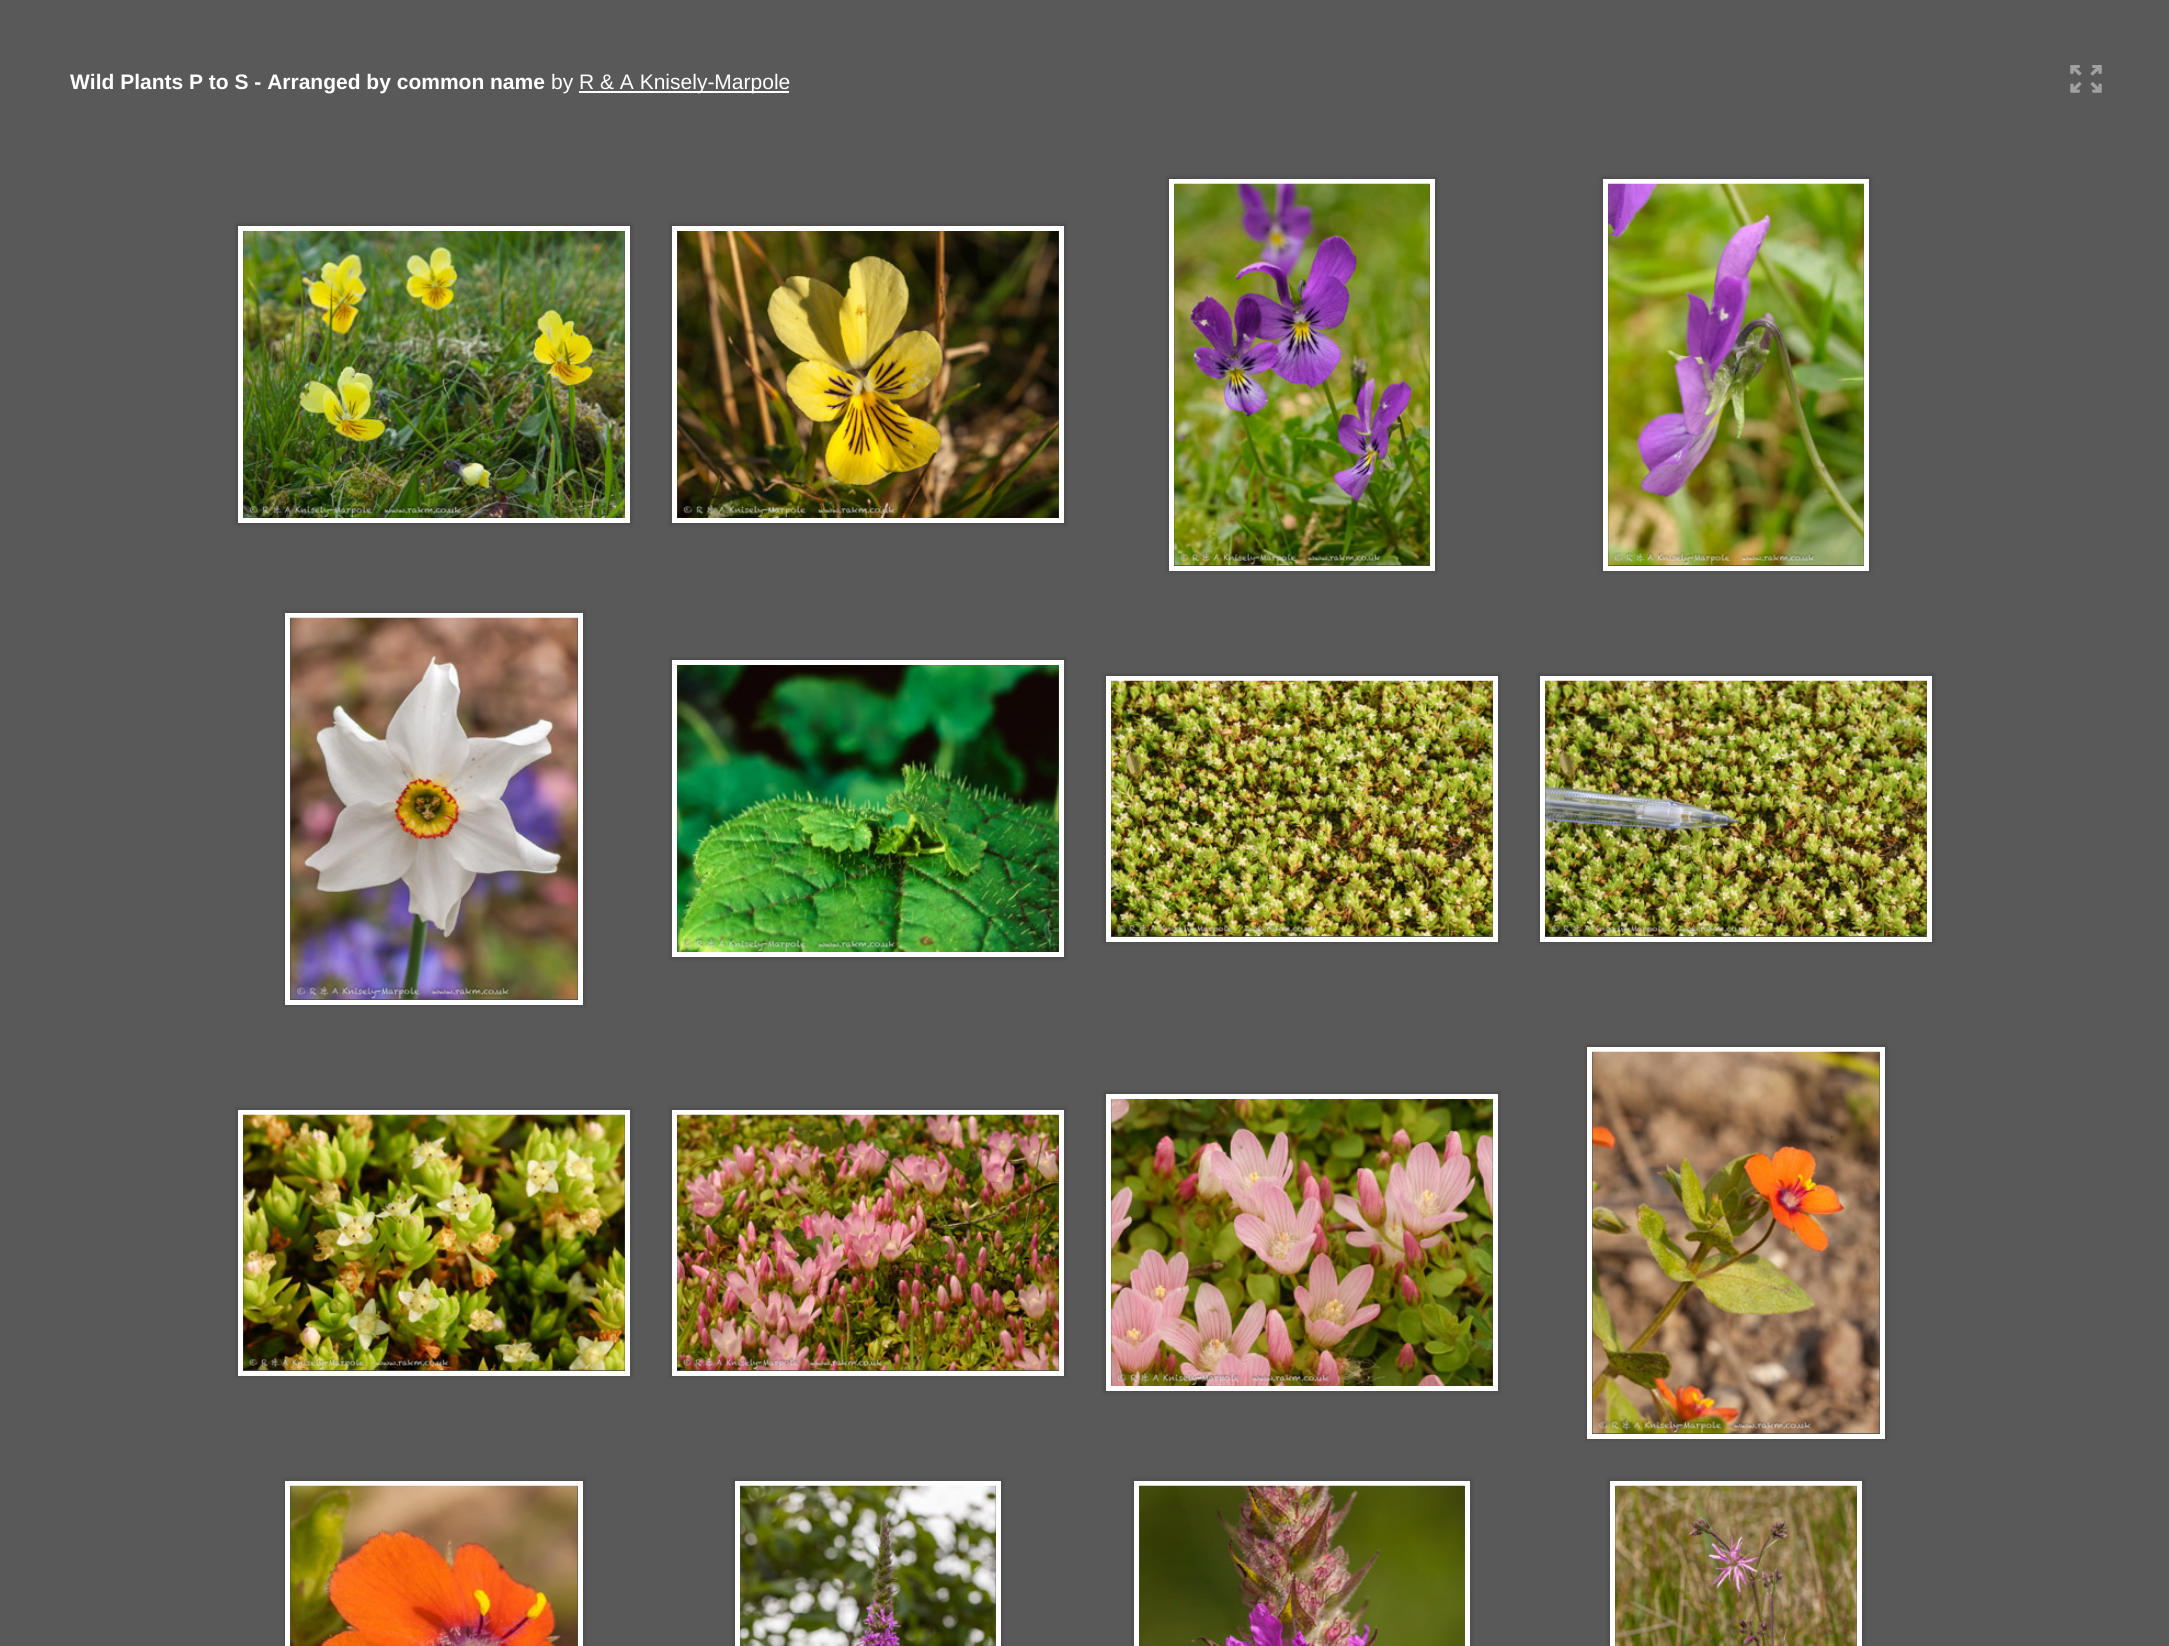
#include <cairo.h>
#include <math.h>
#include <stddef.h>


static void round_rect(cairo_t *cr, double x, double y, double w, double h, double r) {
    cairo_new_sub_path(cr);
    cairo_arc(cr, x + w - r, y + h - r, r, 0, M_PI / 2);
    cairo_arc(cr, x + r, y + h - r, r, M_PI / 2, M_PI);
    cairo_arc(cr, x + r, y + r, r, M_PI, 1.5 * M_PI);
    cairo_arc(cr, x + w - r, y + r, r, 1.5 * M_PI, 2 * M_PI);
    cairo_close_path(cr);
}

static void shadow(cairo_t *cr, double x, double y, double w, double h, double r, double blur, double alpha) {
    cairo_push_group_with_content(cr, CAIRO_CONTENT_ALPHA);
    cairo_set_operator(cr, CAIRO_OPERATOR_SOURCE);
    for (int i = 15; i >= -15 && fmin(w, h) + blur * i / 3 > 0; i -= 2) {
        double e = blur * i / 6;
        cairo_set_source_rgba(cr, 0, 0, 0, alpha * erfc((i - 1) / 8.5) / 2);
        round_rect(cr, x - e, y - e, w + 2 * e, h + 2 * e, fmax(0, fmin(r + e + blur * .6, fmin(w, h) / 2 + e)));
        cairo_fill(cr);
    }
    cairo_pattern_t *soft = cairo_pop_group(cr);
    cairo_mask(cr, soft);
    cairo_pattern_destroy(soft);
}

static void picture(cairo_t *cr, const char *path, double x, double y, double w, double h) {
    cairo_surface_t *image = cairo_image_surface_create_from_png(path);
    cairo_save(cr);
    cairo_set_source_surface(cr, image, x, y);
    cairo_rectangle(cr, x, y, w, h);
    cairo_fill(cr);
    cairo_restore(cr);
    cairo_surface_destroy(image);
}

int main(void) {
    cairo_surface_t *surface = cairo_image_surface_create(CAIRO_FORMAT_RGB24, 2169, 1646);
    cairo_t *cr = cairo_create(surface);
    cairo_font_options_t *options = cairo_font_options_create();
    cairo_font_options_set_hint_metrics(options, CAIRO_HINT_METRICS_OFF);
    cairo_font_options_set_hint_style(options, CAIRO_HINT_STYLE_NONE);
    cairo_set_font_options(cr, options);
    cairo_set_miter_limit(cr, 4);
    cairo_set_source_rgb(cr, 0.349, 0.349, 0.349);
    cairo_paint(cr);
    cairo_select_font_face(cr, "Liberation Sans", CAIRO_FONT_SLANT_NORMAL, CAIRO_FONT_WEIGHT_BOLD);
    cairo_set_font_size(cr, 21);
    cairo_set_source_rgb(cr, 1, 1, 1);
    cairo_move_to(cr, 70, 89);
    cairo_show_text(cr, "Wild Plants P to S - Arranged by common name");
    cairo_select_font_face(cr, "Liberation Sans", CAIRO_FONT_SLANT_NORMAL, CAIRO_FONT_WEIGHT_NORMAL);
    cairo_move_to(cr, 551, 89);
    cairo_show_text(cr, "by");
    cairo_rectangle(cr, 579, 91, 210, 2);
    cairo_fill(cr);
    cairo_move_to(cr, 579, 89);
    cairo_show_text(cr, "R & A Knisely-Marpole");
    picture(cr, "img1.png", 2070, 65, 32, 28);
    cairo_set_source_rgb(cr, 0, 0, 0);
    shadow(cr, 236, 224, 396, 301, 0, 2, 0.15);
    cairo_rectangle(cr, 240.5, 228.5, 387, 292);
    cairo_set_source_rgb(cr, 1, 1, 1);
    cairo_set_line_width(cr, 5);
    cairo_stroke(cr);
    picture(cr, "img2.png", 243, 231, 382, 287);
    cairo_set_source_rgb(cr, 0, 0, 0);
    shadow(cr, 670, 224, 396, 301, 0, 2, 0.15);
    cairo_rectangle(cr, 674.5, 228.5, 387, 292);
    cairo_set_source_rgb(cr, 1, 1, 1);
    cairo_stroke(cr);
    picture(cr, "img3.png", 677, 231, 382, 287);
    cairo_set_source_rgb(cr, 0, 0, 0);
    shadow(cr, 1167, 177, 270, 395, 0, 2, 0.15);
    cairo_rectangle(cr, 1171.5, 181.5, 261, 387);
    cairo_set_source_rgb(cr, 1, 1, 1);
    cairo_stroke(cr);
    picture(cr, "img4.png", 1174, 183, 256, 383);
    cairo_set_source_rgb(cr, 0, 0, 0);
    shadow(cr, 1601, 177, 270, 395, 0, 2, 0.15);
    cairo_rectangle(cr, 1605.5, 181.5, 261, 387);
    cairo_set_source_rgb(cr, 1, 1, 1);
    cairo_stroke(cr);
    picture(cr, "img5.png", 1608, 183, 256, 383);
    cairo_set_source_rgb(cr, 0, 0, 0);
    shadow(cr, 284, 611, 301, 395, 0, 2, 0.15);
    cairo_rectangle(cr, 287.5, 615.5, 293, 387);
    cairo_set_source_rgb(cr, 1, 1, 1);
    cairo_stroke(cr);
    picture(cr, "img6.png", 290, 617, 288, 383);
    cairo_set_source_rgb(cr, 0, 0, 0);
    shadow(cr, 670, 658, 396, 301, 0, 2, 0.15);
    cairo_rectangle(cr, 674.5, 662.5, 387, 292);
    cairo_set_source_rgb(cr, 1, 1, 1);
    cairo_stroke(cr);
    picture(cr, "img7.png", 677, 665, 382, 287);
    cairo_set_source_rgb(cr, 0, 0, 0);
    shadow(cr, 1104, 674, 396, 269, 0, 2, 0.15);
    cairo_rectangle(cr, 1108.5, 678.5, 387, 261);
    cairo_set_source_rgb(cr, 1, 1, 1);
    cairo_stroke(cr);
    picture(cr, "img8.png", 1111, 680, 382, 257);
    cairo_set_source_rgb(cr, 0, 0, 0);
    shadow(cr, 1538, 674, 396, 269, 0, 2, 0.15);
    cairo_rectangle(cr, 1542.5, 678.5, 387, 261);
    cairo_set_source_rgb(cr, 1, 1, 1);
    cairo_stroke(cr);
    picture(cr, "img9.png", 1545, 680, 382, 257);
    cairo_set_source_rgb(cr, 0, 0, 0);
    shadow(cr, 236, 1108, 396, 269, 0, 2, 0.15);
    cairo_rectangle(cr, 240.5, 1112.5, 387, 261);
    cairo_set_source_rgb(cr, 1, 1, 1);
    cairo_stroke(cr);
    picture(cr, "img10.png", 243, 1114, 382, 257);
    cairo_set_source_rgb(cr, 0, 0, 0);
    shadow(cr, 670, 1108, 396, 269, 0, 2, 0.15);
    cairo_rectangle(cr, 674.5, 1112.5, 387, 261);
    cairo_set_source_rgb(cr, 1, 1, 1);
    cairo_stroke(cr);
    picture(cr, "img11.png", 677, 1114, 382, 257);
    cairo_set_source_rgb(cr, 0, 0, 0);
    shadow(cr, 1104, 1092, 396, 301, 0, 2, 0.15);
    cairo_rectangle(cr, 1108.5, 1096.5, 387, 292);
    cairo_set_source_rgb(cr, 1, 1, 1);
    cairo_stroke(cr);
    picture(cr, "img12.png", 1111, 1099, 382, 287);
    cairo_set_source_rgb(cr, 0, 0, 0);
    shadow(cr, 1586, 1045, 301, 395, 0, 2, 0.15);
    cairo_rectangle(cr, 1589.5, 1049.5, 293, 387);
    cairo_set_source_rgb(cr, 1, 1, 1);
    cairo_stroke(cr);
    picture(cr, "img13.png", 1592, 1051, 288, 383);
    cairo_set_source_rgb(cr, 0, 0, 0);
    shadow(cr, 284, 1479, 301, 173, 0, 2, 0.15);
    cairo_rectangle(cr, 287.5, 1483.5, 293, 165);
    cairo_set_source_rgb(cr, 1, 1, 1);
    cairo_stroke(cr);
    picture(cr, "img14.png", 290, 1485, 288, 161);
    cairo_set_source_rgb(cr, 0, 0, 0);
    shadow(cr, 733, 1479, 270, 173, 0, 2, 0.15);
    cairo_rectangle(cr, 737.5, 1483.5, 261, 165);
    cairo_set_source_rgb(cr, 1, 1, 1);
    cairo_stroke(cr);
    picture(cr, "img15.png", 740, 1485, 256, 161);
    cairo_set_source_rgb(cr, 0, 0, 0);
    shadow(cr, 1132, 1479, 340, 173, 0, 2, 0.15);
    cairo_rectangle(cr, 1136.5, 1483.5, 331, 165);
    cairo_set_source_rgb(cr, 1, 1, 1);
    cairo_stroke(cr);
    picture(cr, "img16.png", 1139, 1485, 326, 161);
    cairo_set_source_rgb(cr, 0, 0, 0);
    shadow(cr, 1608, 1479, 256, 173, 0, 2, 0.15);
    cairo_rectangle(cr, 1612.5, 1483.5, 247, 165);
    cairo_set_source_rgb(cr, 1, 1, 1);
    cairo_stroke(cr);
    picture(cr, "img17.png", 1615, 1485, 242, 161);
    cairo_surface_write_to_png(surface, "page.png");
    cairo_font_options_destroy(options);
    cairo_destroy(cr);
    cairo_surface_destroy(surface);
    return 0;
}
